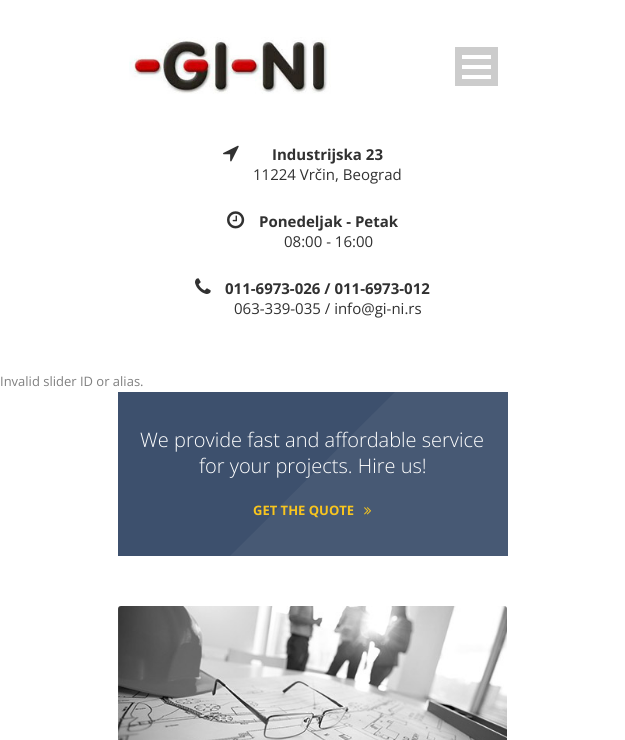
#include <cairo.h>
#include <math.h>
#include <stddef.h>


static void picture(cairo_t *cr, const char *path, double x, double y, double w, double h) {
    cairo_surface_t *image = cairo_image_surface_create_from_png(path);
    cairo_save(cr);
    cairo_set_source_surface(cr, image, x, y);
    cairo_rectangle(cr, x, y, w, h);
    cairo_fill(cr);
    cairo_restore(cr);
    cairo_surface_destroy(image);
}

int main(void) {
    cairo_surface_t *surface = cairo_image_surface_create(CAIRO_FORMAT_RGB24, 625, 740);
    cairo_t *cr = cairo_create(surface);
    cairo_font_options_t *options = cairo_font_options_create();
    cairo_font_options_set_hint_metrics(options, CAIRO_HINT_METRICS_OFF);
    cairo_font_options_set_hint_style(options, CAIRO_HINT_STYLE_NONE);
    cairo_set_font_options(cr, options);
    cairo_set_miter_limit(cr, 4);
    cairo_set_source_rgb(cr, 1, 1, 1);
    cairo_paint(cr);
    picture(cr, "img1.png", 129, 37, 202, 57);
    cairo_set_source_rgb(cr, 0.8, 0.8, 0.8);
    cairo_rectangle(cr, 455, 47, 43, 39);
    cairo_fill(cr);
    cairo_set_source_rgb(cr, 1, 1, 1);
    cairo_rectangle(cr, 462, 75, 29, 4);
    cairo_fill(cr);
    cairo_rectangle(cr, 462, 65, 29, 4);
    cairo_fill(cr);
    cairo_rectangle(cr, 462, 55, 29, 4);
    cairo_fill(cr);
    picture(cr, "img2.png", 223, 145, 16, 17);
    cairo_select_font_face(cr, "Open Sans", CAIRO_FONT_SLANT_NORMAL, CAIRO_FONT_WEIGHT_BOLD);
    cairo_set_font_size(cr, 15);
    cairo_set_source_rgb(cr, 0.192, 0.192, 0.192);
    cairo_move_to(cr, 272, 160);
    cairo_show_text(cr, "Industrijska 23");
    cairo_select_font_face(cr, "Open Sans", CAIRO_FONT_SLANT_NORMAL, CAIRO_FONT_WEIGHT_NORMAL);
    cairo_move_to(cr, 253, 180);
    cairo_show_text(cr, "11224 Vrčin, Beograd");
    picture(cr, "img3.png", 227, 211, 18, 18);
    cairo_select_font_face(cr, "Open Sans", CAIRO_FONT_SLANT_NORMAL, CAIRO_FONT_WEIGHT_BOLD);
    cairo_move_to(cr, 259, 227);
    cairo_show_text(cr, "Ponedeljak - Petak");
    cairo_select_font_face(cr, "Open Sans", CAIRO_FONT_SLANT_NORMAL, CAIRO_FONT_WEIGHT_NORMAL);
    cairo_move_to(cr, 284, 247);
    cairo_show_text(cr, "08:00 - 16:00");
    picture(cr, "img4.png", 195, 278, 16, 16);
    cairo_select_font_face(cr, "Open Sans", CAIRO_FONT_SLANT_NORMAL, CAIRO_FONT_WEIGHT_BOLD);
    cairo_move_to(cr, 225, 294);
    cairo_show_text(cr, "011-6973-026 / 011-6973-012");
    cairo_select_font_face(cr, "Open Sans", CAIRO_FONT_SLANT_NORMAL, CAIRO_FONT_WEIGHT_NORMAL);
    cairo_move_to(cr, 234, 314);
    cairo_show_text(cr, "063-339-035 / info@gi-ni.rs");
    cairo_set_font_size(cr, 13);
    cairo_set_source_rgb(cr, 0.502, 0.502, 0.502);
    cairo_move_to(cr, 0, 386);
    cairo_show_text(cr, "Invalid slider ID or alias.");
    cairo_set_source_rgb(cr, 0.239, 0.314, 0.427);
    cairo_rectangle(cr, 118, 392, 277, 164);
    cairo_fill(cr);
    cairo_save(cr);
    cairo_rectangle(cr, 118, 392, 390, 164);
    cairo_clip(cr);
    cairo_set_source_rgb(cr, 0.278, 0.349, 0.455);
    cairo_new_path(cr);
    cairo_move_to(cr, 395, 392);
    cairo_line_to(cr, 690, 392);
    cairo_line_to(cr, 525, 556);
    cairo_line_to(cr, 230, 556);
    cairo_close_path(cr);
    cairo_fill(cr);
    cairo_restore(cr);
    cairo_select_font_face(cr, "Open Sans Light", CAIRO_FONT_SLANT_NORMAL, CAIRO_FONT_WEIGHT_NORMAL);
    cairo_set_font_size(cr, 20);
    cairo_set_source_rgb(cr, 1, 1, 1);
    cairo_move_to(cr, 140, 447);
    cairo_show_text(cr, "We provide fast and affordable service");
    cairo_move_to(cr, 199, 473);
    cairo_show_text(cr, "for your projects. Hire us!");
    cairo_select_font_face(cr, "Open Sans", CAIRO_FONT_SLANT_NORMAL, CAIRO_FONT_WEIGHT_BOLD);
    cairo_set_font_size(cr, 13);
    cairo_set_source_rgb(cr, 0.969, 0.773, 0.118);
    cairo_move_to(cr, 253, 515);
    cairo_show_text(cr, "GET THE QUOTE");
    picture(cr, "img5.png", 364, 507, 8, 8);
    picture(cr, "img6.png", 118, 606, 389, 134);
    cairo_surface_write_to_png(surface, "page.png");
    cairo_font_options_destroy(options);
    cairo_destroy(cr);
    cairo_surface_destroy(surface);
    return 0;
}
